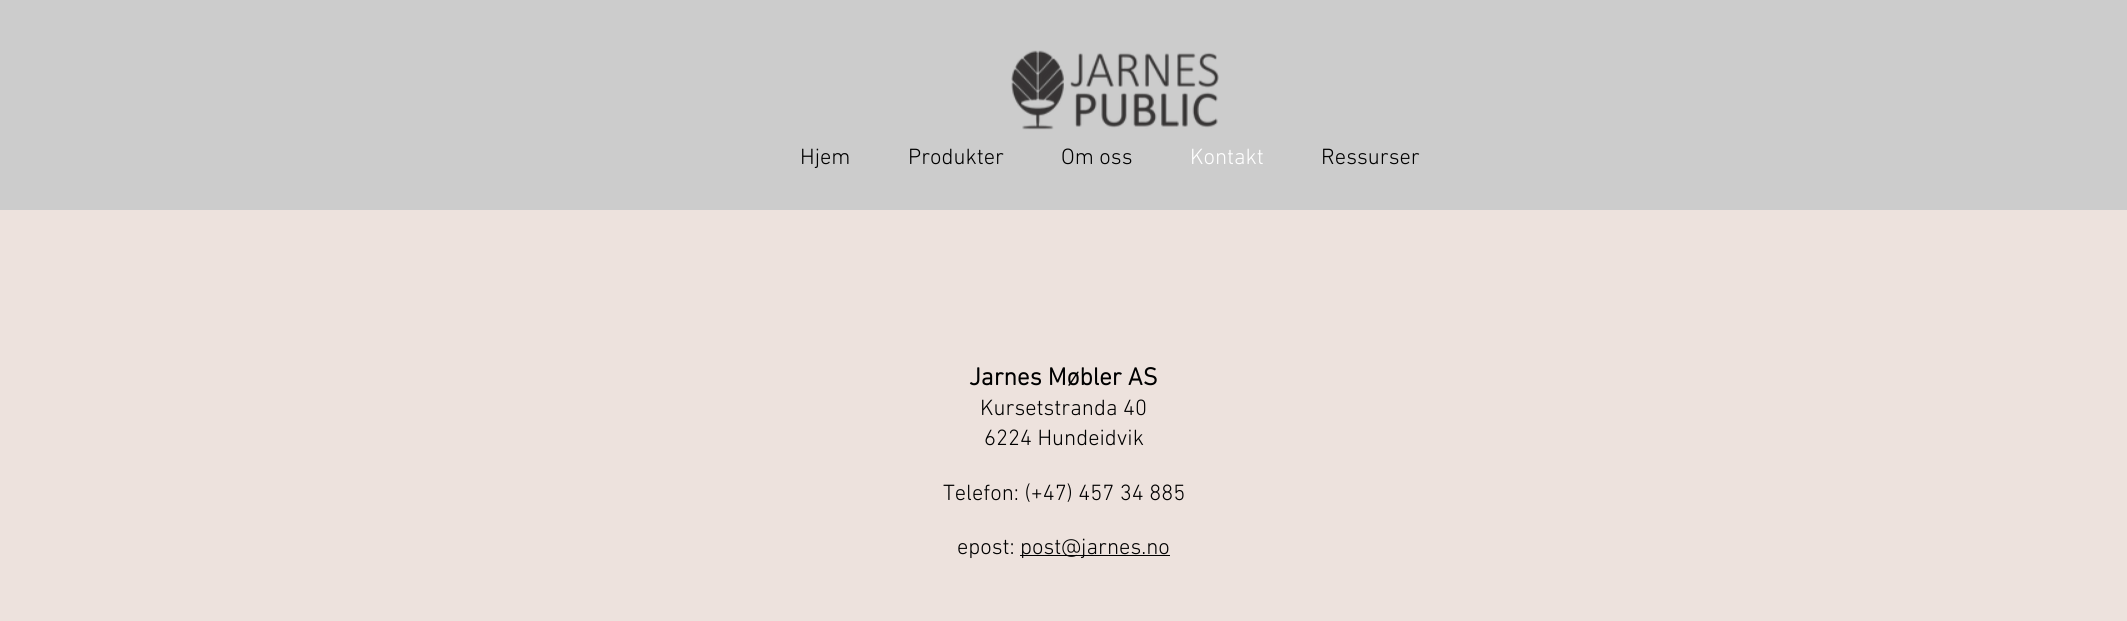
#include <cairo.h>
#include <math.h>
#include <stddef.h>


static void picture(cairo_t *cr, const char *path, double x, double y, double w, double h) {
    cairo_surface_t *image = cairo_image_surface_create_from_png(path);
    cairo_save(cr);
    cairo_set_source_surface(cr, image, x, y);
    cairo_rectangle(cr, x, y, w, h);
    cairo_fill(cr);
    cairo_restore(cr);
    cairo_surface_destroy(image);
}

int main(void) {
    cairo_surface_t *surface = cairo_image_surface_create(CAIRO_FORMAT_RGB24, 2127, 621);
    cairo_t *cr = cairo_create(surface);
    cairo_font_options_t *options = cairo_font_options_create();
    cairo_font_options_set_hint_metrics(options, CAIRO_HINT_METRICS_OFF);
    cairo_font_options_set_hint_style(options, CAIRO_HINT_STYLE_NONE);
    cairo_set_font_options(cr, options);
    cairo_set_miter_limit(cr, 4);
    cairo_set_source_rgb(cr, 0.929, 0.886, 0.867);
    cairo_paint(cr);
    cairo_set_source_rgb(cr, 0.8, 0.8, 0.8);
    cairo_rectangle(cr, 0, 0, 2127, 210);
    cairo_fill(cr);
    picture(cr, "img1.png", 1011, 50, 208, 80);
    cairo_select_font_face(cr, "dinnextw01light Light", CAIRO_FONT_SLANT_NORMAL, CAIRO_FONT_WEIGHT_NORMAL);
    cairo_set_font_size(cr, 22.5);
    cairo_set_source_rgb(cr, 0, 0, 0);
    cairo_move_to(cr, 800, 164);
    cairo_show_text(cr, "Hjem");
    cairo_move_to(cr, 908, 164);
    cairo_show_text(cr, "Produkter");
    cairo_move_to(cr, 1061, 164);
    cairo_show_text(cr, "Om oss");
    cairo_set_source_rgb(cr, 1, 1, 1);
    cairo_move_to(cr, 1190, 164);
    cairo_show_text(cr, "Kontakt");
    cairo_set_source_rgb(cr, 0, 0, 0);
    cairo_move_to(cr, 1321, 164);
    cairo_show_text(cr, "Ressurser");
    cairo_select_font_face(cr, "dinnextw01light", CAIRO_FONT_SLANT_NORMAL, CAIRO_FONT_WEIGHT_BOLD);
    cairo_set_font_size(cr, 25);
    cairo_move_to(cr, 969, 385);
    cairo_show_text(cr, "Jarnes Møbler AS");
    cairo_select_font_face(cr, "dinnextw01light Light", CAIRO_FONT_SLANT_NORMAL, CAIRO_FONT_WEIGHT_NORMAL);
    cairo_set_font_size(cr, 22.5);
    cairo_move_to(cr, 980, 415);
    cairo_show_text(cr, "Kursetstranda 40");
    cairo_move_to(cr, 984, 445);
    cairo_show_text(cr, "6224 Hundeidvik");
    cairo_move_to(cr, 943, 500);
    cairo_show_text(cr, "Telefon: (+47) 457 34 885");
    cairo_move_to(cr, 957, 554);
    cairo_show_text(cr, "epost:");
    cairo_rectangle(cr, 1020, 555, 150, 1);
    cairo_fill(cr);
    cairo_move_to(cr, 1020, 554);
    cairo_show_text(cr, "post@jarnes.no");
    cairo_surface_write_to_png(surface, "page.png");
    cairo_font_options_destroy(options);
    cairo_destroy(cr);
    cairo_surface_destroy(surface);
    return 0;
}
